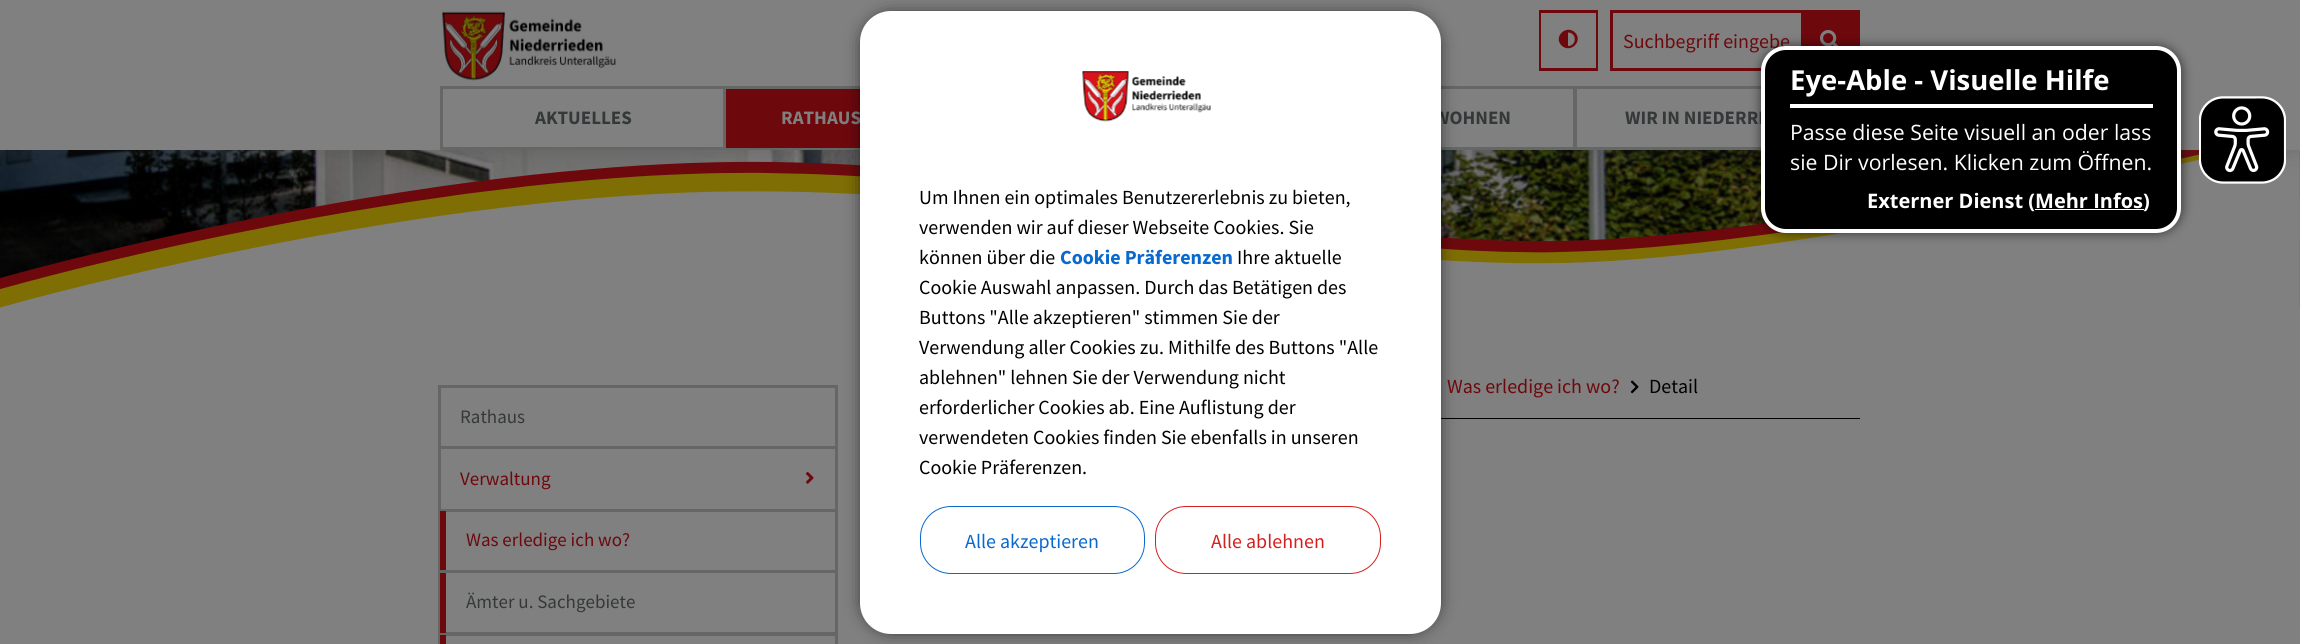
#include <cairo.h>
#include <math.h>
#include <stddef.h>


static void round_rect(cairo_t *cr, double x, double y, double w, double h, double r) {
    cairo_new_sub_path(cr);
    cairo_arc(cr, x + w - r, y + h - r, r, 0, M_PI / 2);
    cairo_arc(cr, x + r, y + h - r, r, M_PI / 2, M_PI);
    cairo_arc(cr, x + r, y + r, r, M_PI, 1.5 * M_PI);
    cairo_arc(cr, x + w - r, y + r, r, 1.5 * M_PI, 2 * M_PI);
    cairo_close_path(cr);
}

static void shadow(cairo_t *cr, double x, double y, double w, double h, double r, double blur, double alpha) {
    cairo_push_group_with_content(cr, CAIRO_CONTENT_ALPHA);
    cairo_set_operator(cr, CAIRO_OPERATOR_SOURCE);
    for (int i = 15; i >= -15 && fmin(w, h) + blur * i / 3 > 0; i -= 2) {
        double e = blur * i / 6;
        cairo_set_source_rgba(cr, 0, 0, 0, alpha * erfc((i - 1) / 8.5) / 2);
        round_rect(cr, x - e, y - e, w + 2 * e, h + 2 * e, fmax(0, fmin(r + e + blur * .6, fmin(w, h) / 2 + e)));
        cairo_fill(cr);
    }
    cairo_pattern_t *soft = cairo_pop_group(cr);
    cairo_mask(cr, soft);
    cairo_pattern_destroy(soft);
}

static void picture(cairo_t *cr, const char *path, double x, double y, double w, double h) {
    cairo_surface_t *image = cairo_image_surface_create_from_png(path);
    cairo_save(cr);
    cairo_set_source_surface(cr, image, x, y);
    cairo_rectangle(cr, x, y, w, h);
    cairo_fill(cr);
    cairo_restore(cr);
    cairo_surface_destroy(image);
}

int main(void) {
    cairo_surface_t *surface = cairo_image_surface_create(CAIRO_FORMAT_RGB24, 2300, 644);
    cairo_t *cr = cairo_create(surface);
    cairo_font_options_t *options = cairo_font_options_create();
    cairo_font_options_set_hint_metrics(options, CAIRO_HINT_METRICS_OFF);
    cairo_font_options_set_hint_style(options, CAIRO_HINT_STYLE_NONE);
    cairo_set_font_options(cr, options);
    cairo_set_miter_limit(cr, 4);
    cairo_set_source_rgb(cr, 0.502, 0.502, 0.502);
    cairo_paint(cr);
    picture(cr, "img3.png", 0, 150, 2300, 158);
    picture(cr, "img4.png", 0, 150, 2300, 158);
    cairo_set_source_rgb(cr, 0.22, 0.22, 0.22);
    shadow(cr, 6, 6, 2288, 138, 0, 12.5, 0.5);
    cairo_set_source_rgb(cr, 0.502, 0.502, 0.502);
    cairo_rectangle(cr, 0, 0, 2300, 150);
    cairo_fill(cr);
    picture(cr, "img1.png", 442, 11, 174, 70);
    cairo_rectangle(cr, 1540.5, 11.5, 56, 58);
    cairo_set_source_rgb(cr, 0.427, 0.035, 0.051);
    cairo_set_line_width(cr, 3);
    cairo_stroke(cr);
    cairo_set_source_rgb(cr, 0.502, 0.502, 0.502);
    cairo_rectangle(cr, 1541, 13, 55, 55);
    cairo_fill(cr);
    cairo_set_source_rgb(cr, 0.427, 0.035, 0.051);
    cairo_new_path(cr);
    cairo_move_to(cr, 1561.5, 45.5);
    cairo_curve_to(cr, 1553, 37, 1566, 24, 1575, 32.5);
    cairo_curve_to(cr, 1583.5, 41, 1570.5, 54, 1561.5, 45.5);
    cairo_close_path(cr);
    cairo_move_to(cr, 1568, 46);
    cairo_curve_to(cr, 1577, 46, 1577, 32.5, 1568, 32.5);
    cairo_close_path(cr);
    cairo_fill(cr);
    cairo_rectangle(cr, 1611.5, 11.5, 247, 58);
    cairo_stroke(cr);
    cairo_select_font_face(cr, "Source Sans Pro", CAIRO_FONT_SLANT_NORMAL, CAIRO_FONT_WEIGHT_NORMAL);
    cairo_set_font_size(cr, 20);
    cairo_move_to(cr, 1623, 48);
    cairo_show_text(cr, "Suchbegriff eingebe");
    cairo_rectangle(cr, 1801, 13, 56, 33);
    cairo_fill(cr);
    picture(cr, "img2.png", 1820, 30, 19, 16);
    cairo_rectangle(cr, 441.5, 87.5, 283, 61);
    cairo_set_source_rgb(cr, 0.396, 0.4, 0.4);
    cairo_stroke(cr);
    cairo_select_font_face(cr, "Source Sans Pro", CAIRO_FONT_SLANT_NORMAL, CAIRO_FONT_WEIGHT_BOLD);
    cairo_set_font_size(cr, 19);
    cairo_set_source_rgb(cr, 0.208, 0.22, 0.224);
    cairo_move_to(cr, 535, 124);
    cairo_show_text(cr, "AKTUELLES");
    cairo_rectangle(cr, 725.5, 87.5, 283, 61);
    cairo_set_source_rgb(cr, 0.396, 0.4, 0.4);
    cairo_stroke(cr);
    cairo_set_source_rgb(cr, 0.427, 0.035, 0.051);
    cairo_rectangle(cr, 726, 89, 134, 59);
    cairo_fill(cr);
    cairo_set_source_rgb(cr, 0.502, 0.502, 0.502);
    cairo_move_to(cr, 781, 124);
    cairo_show_text(cr, "RATHAUS");
    cairo_rectangle(cr, 1291.5, 87.5, 283, 61);
    cairo_set_source_rgb(cr, 0.396, 0.4, 0.4);
    cairo_stroke(cr);
    cairo_set_source_rgb(cr, 0.208, 0.22, 0.224);
    cairo_move_to(cr, 1434, 124);
    cairo_show_text(cr, "WOHNEN");
    cairo_rectangle(cr, 1575.5, 87.5, 283, 61);
    cairo_set_source_rgb(cr, 0.396, 0.4, 0.4);
    cairo_stroke(cr);
    cairo_set_source_rgb(cr, 0.208, 0.22, 0.224);
    cairo_move_to(cr, 1625, 124);
    cairo_show_text(cr, "WIR IN NIEDERRI");
    cairo_set_source_rgb(cr, 0, 0, 0);
    shadow(cr, 1760, 45, 423, 189, 26, 5, 0.5);
    cairo_set_source_rgb(cr, 0, 0, 0);
    round_rect(cr, 1763, 48, 416, 183, 23);
    cairo_fill_preserve(cr);
    cairo_set_source_rgb(cr, 1, 1, 1);
    cairo_set_line_width(cr, 4);
    cairo_stroke(cr);
    cairo_rectangle(cr, 1790, 104, 363, 4);
    cairo_fill(cr);
    cairo_select_font_face(cr, "Open Sans", CAIRO_FONT_SLANT_NORMAL, CAIRO_FONT_WEIGHT_BOLD);
    cairo_set_font_size(cr, 27.5);
    cairo_move_to(cr, 1790, 90);
    cairo_show_text(cr, "Eye-Able - Visuelle Hilfe");
    cairo_select_font_face(cr, "Open Sans", CAIRO_FONT_SLANT_NORMAL, CAIRO_FONT_WEIGHT_NORMAL);
    cairo_set_font_size(cr, 21.25);
    cairo_move_to(cr, 1790, 140);
    cairo_show_text(cr, "Passe diese Seite visuell an oder lass");
    cairo_move_to(cr, 1790, 170);
    cairo_show_text(cr, "sie Dir vorlesen. Klicken zum Öffnen.");
    cairo_select_font_face(cr, "Open Sans", CAIRO_FONT_SLANT_NORMAL, CAIRO_FONT_WEIGHT_BOLD);
    cairo_set_font_size(cr, 20);
    cairo_move_to(cr, 1867, 208);
    cairo_show_text(cr, "Externer Dienst (Mehr Infos");
    cairo_rectangle(cr, 2035, 209, 109, 1);
    cairo_fill(cr);
    cairo_move_to(cr, 2143, 208);
    cairo_show_text(cr, ")");
    picture(cr, "img5.png", 2199, 96, 87, 88);
    cairo_set_source_rgb(cr, 0, 0, 0);
    cairo_rectangle(cr, 1441, 418, 419, 1);
    cairo_fill(cr);
    cairo_rectangle(cr, 439.5, 386.5, 397, 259);
    cairo_set_source_rgb(cr, 0.396, 0.4, 0.4);
    cairo_set_line_width(cr, 3);
    cairo_stroke(cr);
    cairo_rectangle(cr, 439.5, 386.5, 397, 61);
    cairo_stroke(cr);
    cairo_rectangle(cr, 439.5, 510.5, 397, 61);
    cairo_stroke(cr);
    cairo_rectangle(cr, 439.5, 571.5, 397, 62);
    cairo_stroke(cr);
    cairo_rectangle(cr, 439.5, 634.5, 397, 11);
    cairo_stroke(cr);
    cairo_set_source_rgb(cr, 0, 0, 0);
    shadow(cr, 866, 18, 569, 610, 25, 9.5, 1);
    cairo_set_source_rgb(cr, 1, 1, 1);
    round_rect(cr, 860, 11, 581, 623, 31);
    cairo_fill(cr);
    picture(cr, "img6.png", 1082, 71, 129, 51);
    cairo_select_font_face(cr, "Source Sans Pro", CAIRO_FONT_SLANT_NORMAL, CAIRO_FONT_WEIGHT_NORMAL);
    cairo_set_source_rgb(cr, 0, 0, 0);
    cairo_move_to(cr, 919, 204);
    cairo_show_text(cr, "Um Ihnen ein optimales Benutzererlebnis zu bieten,");
    cairo_move_to(cr, 919, 234);
    cairo_show_text(cr, "verwenden wir auf dieser Webseite Cookies. Sie");
    cairo_move_to(cr, 919, 264);
    cairo_show_text(cr, "können über die");
    cairo_select_font_face(cr, "Source Sans Pro", CAIRO_FONT_SLANT_NORMAL, CAIRO_FONT_WEIGHT_BOLD);
    cairo_set_source_rgb(cr, 0.039, 0.412, 0.808);
    cairo_move_to(cr, 1060, 264);
    cairo_show_text(cr, "Cookie Präferenzen");
    cairo_select_font_face(cr, "Source Sans Pro", CAIRO_FONT_SLANT_NORMAL, CAIRO_FONT_WEIGHT_NORMAL);
    cairo_set_source_rgb(cr, 0, 0, 0);
    cairo_move_to(cr, 1237, 264);
    cairo_show_text(cr, "Ihre aktuelle");
    cairo_move_to(cr, 919, 294);
    cairo_show_text(cr, "Cookie Auswahl anpassen. Durch das Betätigen des");
    cairo_move_to(cr, 919, 324);
    cairo_show_text(cr, "Buttons \"Alle akzeptieren\" stimmen Sie der");
    cairo_move_to(cr, 919, 354);
    cairo_show_text(cr, "Verwendung aller Cookies zu. Mithilfe des Buttons \"Alle");
    cairo_move_to(cr, 919, 384);
    cairo_show_text(cr, "ablehnen\" lehnen Sie der Verwendung nicht");
    cairo_move_to(cr, 919, 414);
    cairo_show_text(cr, "erforderlicher Cookies ab. Eine Auflistung der");
    cairo_move_to(cr, 919, 444);
    cairo_show_text(cr, "verwendeten Cookies finden Sie ebenfalls in unseren");
    cairo_move_to(cr, 919, 474);
    cairo_show_text(cr, "Cookie Präferenzen.");
    round_rect(cr, 920.5, 506.5, 224, 67, 30.5);
    cairo_set_source_rgb(cr, 0.039, 0.412, 0.808);
    cairo_set_line_width(cr, 1);
    cairo_stroke(cr);
    cairo_move_to(cr, 965, 548);
    cairo_show_text(cr, "Alle akzeptieren");
    round_rect(cr, 1155.5, 506.5, 225, 67, 30.5);
    cairo_set_source_rgb(cr, 0.835, 0.125, 0.125);
    cairo_stroke(cr);
    cairo_move_to(cr, 1211, 548);
    cairo_show_text(cr, "Alle ablehnen");
    cairo_set_source_rgb(cr, 0.427, 0.035, 0.051);
    cairo_move_to(cr, 1447, 393);
    cairo_show_text(cr, "Was erledige ich wo?");
    picture(cr, "img7.png", 1630, 380, 9, 14);
    cairo_set_source_rgb(cr, 0, 0, 0);
    cairo_move_to(cr, 1649, 393);
    cairo_show_text(cr, "Detail");
    cairo_set_font_size(cr, 19);
    cairo_set_source_rgb(cr, 0.208, 0.22, 0.224);
    cairo_move_to(cr, 460, 423);
    cairo_show_text(cr, "Rathaus");
    cairo_set_source_rgb(cr, 0.427, 0.035, 0.051);
    cairo_move_to(cr, 460, 485);
    cairo_show_text(cr, "Verwaltung");
    picture(cr, "img8.png", 806, 472, 8, 12);
    cairo_rectangle(cr, 440, 511, 6, 59);
    cairo_fill(cr);
    cairo_move_to(cr, 466, 546);
    cairo_show_text(cr, "Was erledige ich wo?");
    cairo_rectangle(cr, 440, 573, 6, 60);
    cairo_fill(cr);
    cairo_set_source_rgb(cr, 0.208, 0.22, 0.224);
    cairo_move_to(cr, 466, 608);
    cairo_show_text(cr, "Ämter u. Sachgebiete");
    cairo_set_source_rgb(cr, 0.427, 0.035, 0.051);
    cairo_rectangle(cr, 440, 635, 6, 9);
    cairo_fill(cr);
    cairo_surface_write_to_png(surface, "page.png");
    cairo_font_options_destroy(options);
    cairo_destroy(cr);
    cairo_surface_destroy(surface);
    return 0;
}
